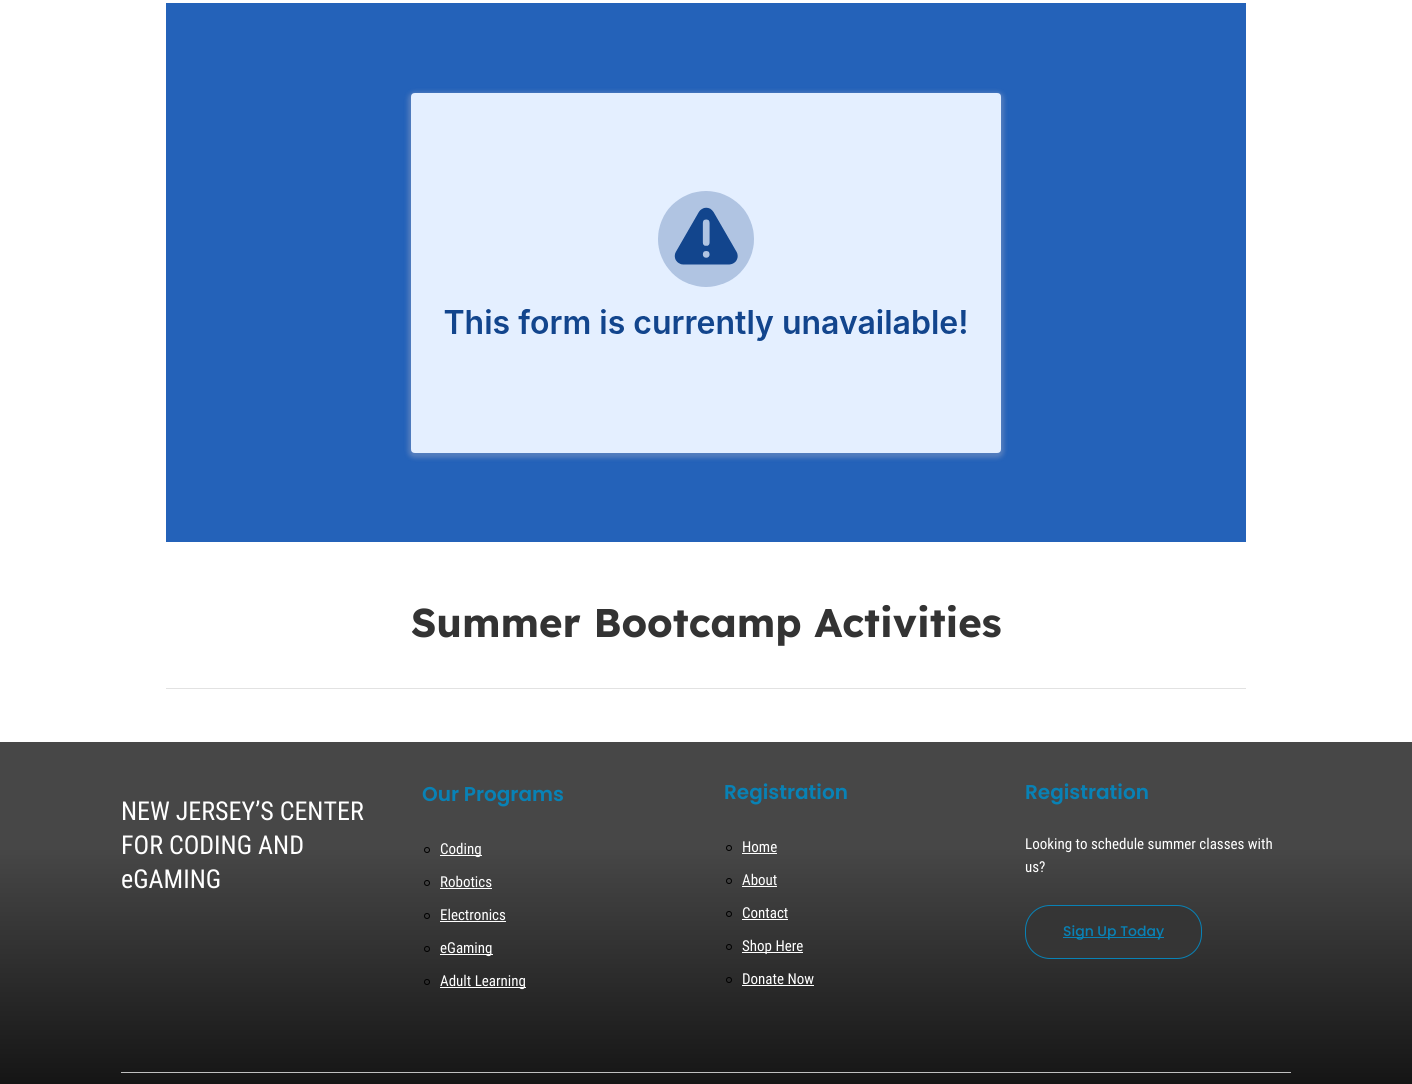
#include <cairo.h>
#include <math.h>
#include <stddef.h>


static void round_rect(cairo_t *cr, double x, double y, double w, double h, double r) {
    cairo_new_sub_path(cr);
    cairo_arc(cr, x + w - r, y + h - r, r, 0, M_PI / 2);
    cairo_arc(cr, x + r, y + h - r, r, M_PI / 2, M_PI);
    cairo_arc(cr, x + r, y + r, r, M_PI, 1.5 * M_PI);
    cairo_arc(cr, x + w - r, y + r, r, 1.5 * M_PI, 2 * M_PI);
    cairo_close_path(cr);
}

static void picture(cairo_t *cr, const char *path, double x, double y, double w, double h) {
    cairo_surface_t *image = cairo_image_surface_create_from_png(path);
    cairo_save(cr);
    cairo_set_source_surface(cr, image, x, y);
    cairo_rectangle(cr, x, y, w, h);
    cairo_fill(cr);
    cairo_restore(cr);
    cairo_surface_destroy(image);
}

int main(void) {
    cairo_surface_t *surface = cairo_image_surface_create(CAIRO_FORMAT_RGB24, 1412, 1084);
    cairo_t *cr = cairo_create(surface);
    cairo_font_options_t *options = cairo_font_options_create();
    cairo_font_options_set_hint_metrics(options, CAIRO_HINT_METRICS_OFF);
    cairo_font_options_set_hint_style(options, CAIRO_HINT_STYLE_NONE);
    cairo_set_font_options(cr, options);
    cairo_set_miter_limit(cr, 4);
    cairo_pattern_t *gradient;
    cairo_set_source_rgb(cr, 1, 1, 1);
    cairo_paint(cr);
    picture(cr, "img1.png", 166, 3, 1080, 539);
    cairo_select_font_face(cr, "Lexend Deca", CAIRO_FONT_SLANT_NORMAL, CAIRO_FONT_WEIGHT_BOLD);
    cairo_set_font_size(cr, 40);
    cairo_set_source_rgb(cr, 0.2, 0.2, 0.2);
    cairo_move_to(cr, 411, 637);
    cairo_show_text(cr, "Summer Bootcamp Activities");
    cairo_set_source_rgb(cr, 0.886, 0.886, 0.886);
    cairo_rectangle(cr, 166, 688, 1080, 1);
    cairo_fill(cr);
    gradient = cairo_pattern_create_linear(706, 742, 706, 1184);
    cairo_pattern_add_color_stop_rgba(gradient, 0.24, 0.278, 0.278, 0.278, 1);
    cairo_pattern_add_color_stop_rgba(gradient, 1, 0, 0, 0, 1);
    cairo_set_source(cr, gradient);
    cairo_pattern_destroy(gradient);
    cairo_rectangle(cr, 0, 742, 1412, 342);
    cairo_fill(cr);
    cairo_set_source_rgb(cr, 0.749, 0.749, 0.749);
    cairo_rectangle(cr, 121, 1072, 1170, 1);
    cairo_fill(cr);
    cairo_select_font_face(cr, "Roboto Condensed", CAIRO_FONT_SLANT_NORMAL, CAIRO_FONT_WEIGHT_NORMAL);
    cairo_set_font_size(cr, 26);
    cairo_set_source_rgb(cr, 1, 1, 1);
    cairo_move_to(cr, 121, 820);
    cairo_show_text(cr, "NEW JERSEY’S CENTER");
    cairo_move_to(cr, 121, 854);
    cairo_show_text(cr, "FOR CODING AND");
    cairo_move_to(cr, 121, 888);
    cairo_show_text(cr, "eGAMING");
    cairo_select_font_face(cr, "Poppins SemiBold", CAIRO_FONT_SLANT_NORMAL, CAIRO_FONT_WEIGHT_NORMAL);
    cairo_set_font_size(cr, 20);
    cairo_set_source_rgb(cr, 0.035, 0.51, 0.714);
    cairo_move_to(cr, 422, 801);
    cairo_show_text(cr, "Our Programs");
    cairo_new_path(cr);
    cairo_arc(cr, 427, 850, 2.5, 0, 2 * M_PI);
    cairo_set_source_rgb(cr, 0, 0, 0);
    cairo_set_line_width(cr, 1);
    cairo_stroke(cr);
    cairo_set_source_rgb(cr, 1, 1, 1);
    cairo_rectangle(cr, 440, 855, 42, 1);
    cairo_fill(cr);
    cairo_select_font_face(cr, "Roboto Condensed", CAIRO_FONT_SLANT_NORMAL, CAIRO_FONT_WEIGHT_NORMAL);
    cairo_set_font_size(cr, 15);
    cairo_move_to(cr, 440, 854);
    cairo_show_text(cr, "Coding");
    cairo_new_path(cr);
    cairo_arc(cr, 427, 883, 2.5, 0, 2 * M_PI);
    cairo_set_source_rgb(cr, 0, 0, 0);
    cairo_stroke(cr);
    cairo_set_source_rgb(cr, 1, 1, 1);
    cairo_move_to(cr, 440, 887);
    cairo_show_text(cr, "Robotics");
    cairo_rectangle(cr, 440, 888, 52, 1);
    cairo_fill(cr);
    cairo_arc(cr, 427, 916, 2.5, 0, 2 * M_PI);
    cairo_set_source_rgb(cr, 0, 0, 0);
    cairo_stroke(cr);
    cairo_set_source_rgb(cr, 1, 1, 1);
    cairo_move_to(cr, 440, 920);
    cairo_show_text(cr, "Electronics");
    cairo_rectangle(cr, 440, 921, 66, 1);
    cairo_fill(cr);
    cairo_arc(cr, 427, 949, 2.5, 0, 2 * M_PI);
    cairo_set_source_rgb(cr, 0, 0, 0);
    cairo_stroke(cr);
    cairo_set_source_rgb(cr, 1, 1, 1);
    cairo_rectangle(cr, 440, 954, 53, 1);
    cairo_fill(cr);
    cairo_move_to(cr, 440, 953);
    cairo_show_text(cr, "eGaming");
    cairo_new_path(cr);
    cairo_arc(cr, 427, 982, 2.5, 0, 2 * M_PI);
    cairo_set_source_rgb(cr, 0, 0, 0);
    cairo_stroke(cr);
    cairo_set_source_rgb(cr, 1, 1, 1);
    cairo_rectangle(cr, 440, 987, 86, 1);
    cairo_fill(cr);
    cairo_move_to(cr, 440, 986);
    cairo_show_text(cr, "Adult Learning");
    cairo_select_font_face(cr, "Poppins SemiBold", CAIRO_FONT_SLANT_NORMAL, CAIRO_FONT_WEIGHT_NORMAL);
    cairo_set_font_size(cr, 20);
    cairo_set_source_rgb(cr, 0.035, 0.51, 0.714);
    cairo_move_to(cr, 724, 799);
    cairo_show_text(cr, "Registration");
    cairo_new_path(cr);
    cairo_arc(cr, 729, 848, 2.5, 0, 2 * M_PI);
    cairo_set_source_rgb(cr, 0, 0, 0);
    cairo_stroke(cr);
    cairo_select_font_face(cr, "Roboto Condensed", CAIRO_FONT_SLANT_NORMAL, CAIRO_FONT_WEIGHT_NORMAL);
    cairo_set_font_size(cr, 15);
    cairo_set_source_rgb(cr, 1, 1, 1);
    cairo_move_to(cr, 742, 852);
    cairo_show_text(cr, "Home");
    cairo_rectangle(cr, 742, 853, 35, 1);
    cairo_fill(cr);
    cairo_arc(cr, 729, 881, 2.5, 0, 2 * M_PI);
    cairo_set_source_rgb(cr, 0, 0, 0);
    cairo_stroke(cr);
    cairo_set_source_rgb(cr, 1, 1, 1);
    cairo_move_to(cr, 742, 885);
    cairo_show_text(cr, "About");
    cairo_rectangle(cr, 742, 886, 35, 1);
    cairo_fill(cr);
    cairo_arc(cr, 729, 914, 2.5, 0, 2 * M_PI);
    cairo_set_source_rgb(cr, 0, 0, 0);
    cairo_stroke(cr);
    cairo_set_source_rgb(cr, 1, 1, 1);
    cairo_move_to(cr, 742, 918);
    cairo_show_text(cr, "Contact");
    cairo_rectangle(cr, 742, 919, 46, 1);
    cairo_fill(cr);
    cairo_arc(cr, 729, 947, 2.5, 0, 2 * M_PI);
    cairo_set_source_rgb(cr, 0, 0, 0);
    cairo_stroke(cr);
    cairo_set_source_rgb(cr, 1, 1, 1);
    cairo_rectangle(cr, 742, 952, 61, 1);
    cairo_fill(cr);
    cairo_move_to(cr, 742, 951);
    cairo_show_text(cr, "Shop Here");
    cairo_new_path(cr);
    cairo_arc(cr, 729, 980, 2.5, 0, 2 * M_PI);
    cairo_set_source_rgb(cr, 0, 0, 0);
    cairo_stroke(cr);
    cairo_set_source_rgb(cr, 1, 1, 1);
    cairo_move_to(cr, 742, 984);
    cairo_show_text(cr, "Donate Now");
    cairo_rectangle(cr, 742, 985, 72, 1);
    cairo_fill(cr);
    cairo_select_font_face(cr, "Poppins SemiBold", CAIRO_FONT_SLANT_NORMAL, CAIRO_FONT_WEIGHT_NORMAL);
    cairo_set_font_size(cr, 20);
    cairo_set_source_rgb(cr, 0.035, 0.51, 0.714);
    cairo_move_to(cr, 1025, 799);
    cairo_show_text(cr, "Registration");
    cairo_select_font_face(cr, "Roboto Condensed", CAIRO_FONT_SLANT_NORMAL, CAIRO_FONT_WEIGHT_NORMAL);
    cairo_set_font_size(cr, 15);
    cairo_set_source_rgb(cr, 1, 1, 1);
    cairo_move_to(cr, 1025, 849);
    cairo_show_text(cr, "Looking to schedule summer classes with");
    cairo_move_to(cr, 1025, 872);
    cairo_show_text(cr, "us?");
    cairo_set_source_rgb(cr, 0.208, 0.208, 0.208);
    round_rect(cr, 1025.5, 905.5, 176, 53, 24.5);
    cairo_fill_preserve(cr);
    cairo_set_source_rgb(cr, 0.035, 0.51, 0.714);
    cairo_stroke(cr);
    cairo_rectangle(cr, 1063, 937, 101, 1);
    cairo_fill(cr);
    cairo_select_font_face(cr, "Poppins Medium", CAIRO_FONT_SLANT_NORMAL, CAIRO_FONT_WEIGHT_NORMAL);
    cairo_set_font_size(cr, 14);
    cairo_move_to(cr, 1063, 936);
    cairo_show_text(cr, "Sign Up Today");
    cairo_surface_write_to_png(surface, "page.png");
    cairo_font_options_destroy(options);
    cairo_destroy(cr);
    cairo_surface_destroy(surface);
    return 0;
}
